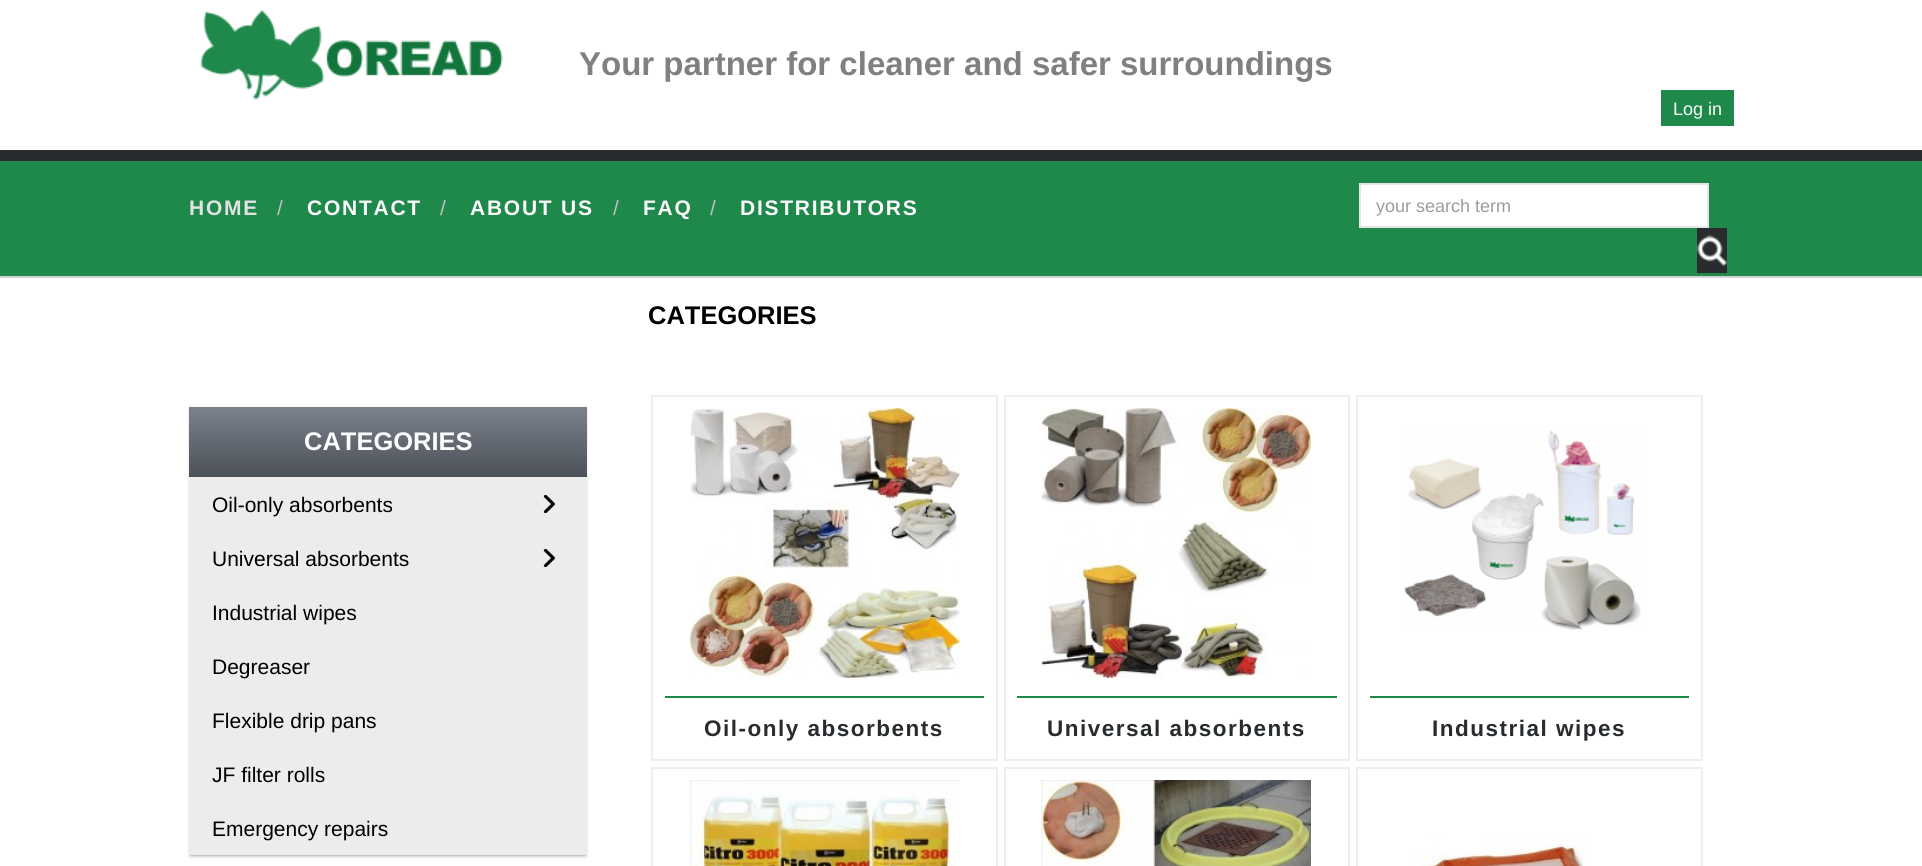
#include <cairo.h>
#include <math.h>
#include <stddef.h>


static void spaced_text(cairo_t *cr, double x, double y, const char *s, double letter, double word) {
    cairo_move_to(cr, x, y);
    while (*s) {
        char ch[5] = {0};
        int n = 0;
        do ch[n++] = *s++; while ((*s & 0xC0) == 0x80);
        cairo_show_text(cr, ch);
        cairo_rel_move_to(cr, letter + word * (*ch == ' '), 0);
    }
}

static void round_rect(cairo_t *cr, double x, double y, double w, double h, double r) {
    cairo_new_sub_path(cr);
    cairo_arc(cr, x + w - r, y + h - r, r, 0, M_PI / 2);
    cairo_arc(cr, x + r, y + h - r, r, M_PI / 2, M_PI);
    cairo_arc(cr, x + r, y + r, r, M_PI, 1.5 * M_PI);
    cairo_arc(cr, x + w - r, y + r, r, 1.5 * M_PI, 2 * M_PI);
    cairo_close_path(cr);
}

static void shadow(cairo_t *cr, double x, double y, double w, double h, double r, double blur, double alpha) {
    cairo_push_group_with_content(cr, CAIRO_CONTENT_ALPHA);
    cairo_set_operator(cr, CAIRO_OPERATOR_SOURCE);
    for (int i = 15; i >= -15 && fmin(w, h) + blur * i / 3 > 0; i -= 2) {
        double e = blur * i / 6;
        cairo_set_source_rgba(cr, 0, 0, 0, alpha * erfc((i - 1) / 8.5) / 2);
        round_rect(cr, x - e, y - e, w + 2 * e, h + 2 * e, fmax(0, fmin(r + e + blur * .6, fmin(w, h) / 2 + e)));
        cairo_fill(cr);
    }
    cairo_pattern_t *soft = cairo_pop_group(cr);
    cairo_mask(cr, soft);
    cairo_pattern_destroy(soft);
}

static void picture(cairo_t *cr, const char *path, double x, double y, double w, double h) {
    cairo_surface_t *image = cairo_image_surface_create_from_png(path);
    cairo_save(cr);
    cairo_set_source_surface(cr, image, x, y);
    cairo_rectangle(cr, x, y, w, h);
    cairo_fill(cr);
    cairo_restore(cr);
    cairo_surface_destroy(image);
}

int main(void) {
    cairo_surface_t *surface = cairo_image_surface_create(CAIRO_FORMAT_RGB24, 1922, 866);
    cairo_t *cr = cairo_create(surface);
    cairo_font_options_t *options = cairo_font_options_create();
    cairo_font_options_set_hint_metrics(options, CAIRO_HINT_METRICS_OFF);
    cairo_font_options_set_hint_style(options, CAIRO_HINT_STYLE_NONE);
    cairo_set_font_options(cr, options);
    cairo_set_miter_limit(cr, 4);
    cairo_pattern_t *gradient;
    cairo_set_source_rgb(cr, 1, 1, 1);
    cairo_paint(cr);
    picture(cr, "img1.png", 200, 10, 303, 90);
    cairo_select_font_face(cr, "Liberation Sans", CAIRO_FONT_SLANT_NORMAL, CAIRO_FONT_WEIGHT_BOLD);
    cairo_set_font_size(cr, 33);
    cairo_set_source_rgb(cr, 0.502, 0.502, 0.502);
    cairo_move_to(cr, 579, 75);
    cairo_show_text(cr, "Your partner for cleaner and safer surroundings");
    cairo_set_source_rgb(cr, 0.122, 0.537, 0.298);
    cairo_rectangle(cr, 1661, 90, 73, 36);
    cairo_fill(cr);
    cairo_select_font_face(cr, "Liberation Sans", CAIRO_FONT_SLANT_NORMAL, CAIRO_FONT_WEIGHT_NORMAL);
    cairo_set_font_size(cr, 18);
    cairo_set_source_rgb(cr, 0.988, 0.988, 0.988);
    cairo_move_to(cr, 1673, 115);
    cairo_show_text(cr, "Log in");
    cairo_set_source_rgb(cr, 0.122, 0.537, 0.298);
    cairo_rectangle(cr, 0, 161, 1922, 115);
    cairo_fill(cr);
    cairo_set_source_rgb(cr, 0.157, 0.173, 0.184);
    cairo_rectangle(cr, 0, 150, 1922, 11);
    cairo_fill(cr);
    cairo_set_source_rgb(cr, 0.827, 0.827, 0.827);
    cairo_rectangle(cr, 0, 276, 1922, 2);
    cairo_fill(cr);
    cairo_select_font_face(cr, "Liberation Sans", CAIRO_FONT_SLANT_NORMAL, CAIRO_FONT_WEIGHT_BOLD);
    cairo_set_font_size(cr, 21);
    cairo_set_source_rgb(cr, 0.886, 0.886, 0.886);
    spaced_text(cr, 189, 215, "HOME", 1.75, 0);
    cairo_select_font_face(cr, "Liberation Sans", CAIRO_FONT_SLANT_NORMAL, CAIRO_FONT_WEIGHT_NORMAL);
    cairo_set_source_rgb(cr, 0.753, 0.753, 0.753);
    spaced_text(cr, 277, 215, "/", 1.75, 0);
    cairo_select_font_face(cr, "Liberation Sans", CAIRO_FONT_SLANT_NORMAL, CAIRO_FONT_WEIGHT_BOLD);
    cairo_set_source_rgb(cr, 0.988, 0.988, 0.988);
    spaced_text(cr, 307, 215, "CONTACT", 1.75, 0);
    cairo_select_font_face(cr, "Liberation Sans", CAIRO_FONT_SLANT_NORMAL, CAIRO_FONT_WEIGHT_NORMAL);
    cairo_set_source_rgb(cr, 0.753, 0.753, 0.753);
    spaced_text(cr, 440, 215, "/", 1.75, 0);
    cairo_select_font_face(cr, "Liberation Sans", CAIRO_FONT_SLANT_NORMAL, CAIRO_FONT_WEIGHT_BOLD);
    cairo_set_source_rgb(cr, 0.988, 0.988, 0.988);
    spaced_text(cr, 470, 215, "ABOUT US", 1.75, 0);
    cairo_select_font_face(cr, "Liberation Sans", CAIRO_FONT_SLANT_NORMAL, CAIRO_FONT_WEIGHT_NORMAL);
    cairo_set_source_rgb(cr, 0.753, 0.753, 0.753);
    spaced_text(cr, 613, 215, "/", 1.75, 0);
    cairo_select_font_face(cr, "Liberation Sans", CAIRO_FONT_SLANT_NORMAL, CAIRO_FONT_WEIGHT_BOLD);
    cairo_set_source_rgb(cr, 0.988, 0.988, 0.988);
    spaced_text(cr, 643, 215, "FAQ", 1.75, 0);
    cairo_select_font_face(cr, "Liberation Sans", CAIRO_FONT_SLANT_NORMAL, CAIRO_FONT_WEIGHT_NORMAL);
    cairo_set_source_rgb(cr, 0.753, 0.753, 0.753);
    spaced_text(cr, 710, 215, "/", 1.75, 0);
    cairo_select_font_face(cr, "Liberation Sans", CAIRO_FONT_SLANT_NORMAL, CAIRO_FONT_WEIGHT_BOLD);
    cairo_set_source_rgb(cr, 0.988, 0.988, 0.988);
    spaced_text(cr, 740, 215, "DISTRIBUTORS", 1.75, 0);
    cairo_set_source_rgb(cr, 1, 1, 1);
    cairo_rectangle(cr, 1360, 184, 348, 43);
    cairo_fill_preserve(cr);
    cairo_set_source_rgb(cr, 0.898, 0.898, 0.898);
    cairo_stroke(cr);
    cairo_select_font_face(cr, "Liberation Sans", CAIRO_FONT_SLANT_NORMAL, CAIRO_FONT_WEIGHT_NORMAL);
    cairo_set_font_size(cr, 18);
    cairo_set_source_rgb(cr, 0.612, 0.612, 0.612);
    cairo_move_to(cr, 1376, 212);
    cairo_show_text(cr, "your search term");
    cairo_set_source_rgb(cr, 0.157, 0.173, 0.184);
    cairo_rectangle(cr, 1697, 228, 30, 45);
    cairo_fill(cr);
    picture(cr, "img2.png", 1696, 235, 31, 31);
    cairo_set_source_rgb(cr, 0, 0, 0);
    shadow(cr, 189, 408, 398, 449, 0, 1.5, 0.1);
    shadow(cr, 191, 410, 394, 445, 0, 1.5, 0.4);
    gradient = cairo_pattern_create_linear(388, 407, 388, 477);
    cairo_pattern_add_color_stop_rgba(gradient, 0, 0.486, 0.51, 0.545, 1);
    cairo_pattern_add_color_stop_rgba(gradient, 1, 0.294, 0.314, 0.349, 1);
    cairo_set_source(cr, gradient);
    cairo_pattern_destroy(gradient);
    cairo_rectangle(cr, 189, 407, 398, 70);
    cairo_fill(cr);
    cairo_select_font_face(cr, "Liberation Sans", CAIRO_FONT_SLANT_NORMAL, CAIRO_FONT_WEIGHT_BOLD);
    cairo_set_font_size(cr, 25.5);
    cairo_set_source_rgb(cr, 0.988, 0.988, 0.988);
    cairo_move_to(cr, 304, 450);
    cairo_show_text(cr, "CATEGORIES");
    cairo_set_source_rgb(cr, 0.922, 0.922, 0.922);
    cairo_rectangle(cr, 189, 477, 398, 378);
    cairo_fill(cr);
    cairo_select_font_face(cr, "Liberation Sans", CAIRO_FONT_SLANT_NORMAL, CAIRO_FONT_WEIGHT_NORMAL);
    cairo_set_font_size(cr, 21);
    cairo_set_source_rgb(cr, 0, 0, 0);
    cairo_move_to(cr, 212, 512);
    cairo_show_text(cr, "Oil-only absorbents");
    picture(cr, "img3.png", 543, 495, 12, 18);
    cairo_move_to(cr, 212, 566);
    cairo_show_text(cr, "Universal absorbents");
    picture(cr, "img3.png", 543, 549, 12, 18);
    cairo_move_to(cr, 212, 620);
    cairo_show_text(cr, "Industrial wipes");
    cairo_move_to(cr, 212, 674);
    cairo_show_text(cr, "Degreaser");
    cairo_move_to(cr, 212, 728);
    cairo_show_text(cr, "Flexible drip pans");
    cairo_move_to(cr, 212, 782);
    cairo_show_text(cr, "JF filter rolls");
    cairo_move_to(cr, 212, 836);
    cairo_show_text(cr, "Emergency repairs");
    cairo_select_font_face(cr, "Liberation Sans", CAIRO_FONT_SLANT_NORMAL, CAIRO_FONT_WEIGHT_BOLD);
    cairo_set_font_size(cr, 25.5);
    cairo_move_to(cr, 648, 324);
    cairo_show_text(cr, "CATEGORIES");
    cairo_rectangle(cr, 652, 396, 345, 364);
    cairo_set_source_rgb(cr, 0.933, 0.933, 0.933);
    cairo_stroke(cr);
    picture(cr, "img4.png", 690, 408, 270, 270);
    cairo_set_source_rgb(cr, 0.122, 0.537, 0.298);
    cairo_rectangle(cr, 665, 696, 319, 2);
    cairo_fill(cr);
    cairo_set_font_size(cr, 22.5);
    cairo_set_source_rgb(cr, 0.157, 0.173, 0.184);
    spaced_text(cr, 704, 736, "Oil-only absorbents", 1.5, 0);
    cairo_rectangle(cr, 1005, 396, 344, 364);
    cairo_set_source_rgb(cr, 0.933, 0.933, 0.933);
    cairo_stroke(cr);
    picture(cr, "img5.png", 1041, 408, 270, 270);
    cairo_set_source_rgb(cr, 0.122, 0.537, 0.298);
    cairo_rectangle(cr, 1017, 696, 320, 2);
    cairo_fill(cr);
    cairo_set_source_rgb(cr, 0.157, 0.173, 0.184);
    spaced_text(cr, 1047, 736, "Universal absorbents", 1.5, 0);
    cairo_rectangle(cr, 1357, 396, 345, 364);
    cairo_set_source_rgb(cr, 0.933, 0.933, 0.933);
    cairo_stroke(cr);
    picture(cr, "img6.png", 1404, 430, 237, 200);
    cairo_set_source_rgb(cr, 0.122, 0.537, 0.298);
    cairo_rectangle(cr, 1370, 696, 319, 2);
    cairo_fill(cr);
    cairo_set_source_rgb(cr, 0.157, 0.173, 0.184);
    spaced_text(cr, 1432, 736, "Industrial wipes", 1.5, 0);
    cairo_rectangle(cr, 652, 768, 345, 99);
    cairo_set_source_rgb(cr, 0.933, 0.933, 0.933);
    cairo_stroke(cr);
    picture(cr, "img7.png", 690, 780, 270, 86);
    cairo_rectangle(cr, 1005, 768, 344, 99);
    cairo_stroke(cr);
    picture(cr, "img8.png", 1041, 780, 270, 86);
    cairo_rectangle(cr, 1357, 768, 345, 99);
    cairo_stroke(cr);
    picture(cr, "img9.png", 1415, 836, 170, 30);
    cairo_surface_write_to_png(surface, "page.png");
    cairo_font_options_destroy(options);
    cairo_destroy(cr);
    cairo_surface_destroy(surface);
    return 0;
}
